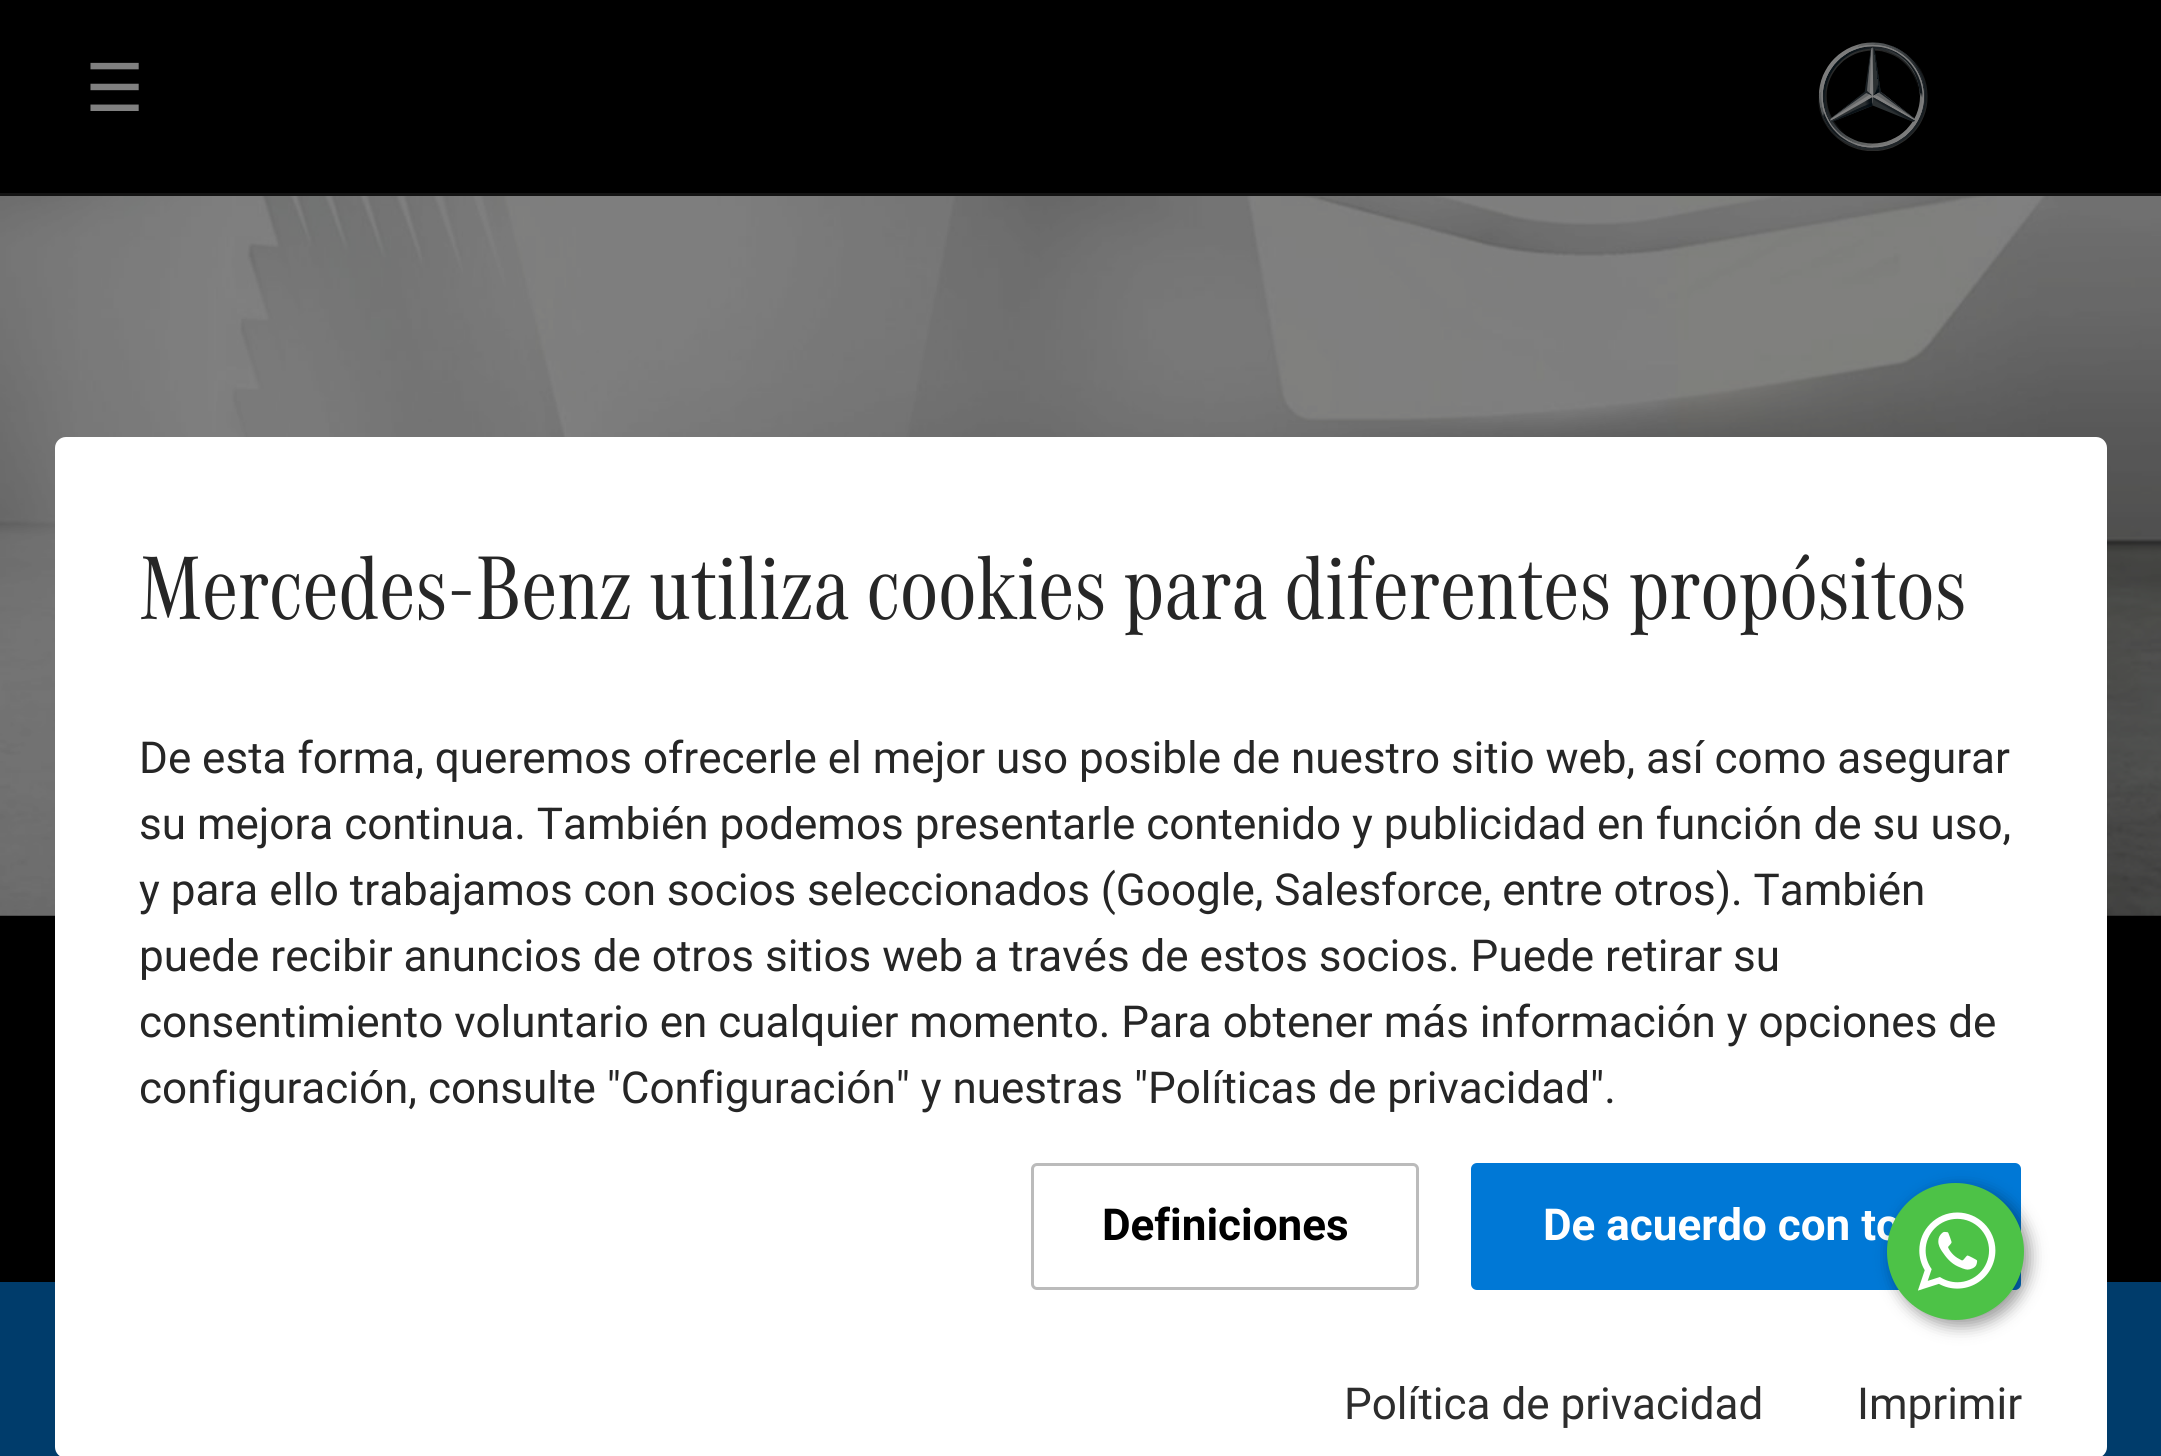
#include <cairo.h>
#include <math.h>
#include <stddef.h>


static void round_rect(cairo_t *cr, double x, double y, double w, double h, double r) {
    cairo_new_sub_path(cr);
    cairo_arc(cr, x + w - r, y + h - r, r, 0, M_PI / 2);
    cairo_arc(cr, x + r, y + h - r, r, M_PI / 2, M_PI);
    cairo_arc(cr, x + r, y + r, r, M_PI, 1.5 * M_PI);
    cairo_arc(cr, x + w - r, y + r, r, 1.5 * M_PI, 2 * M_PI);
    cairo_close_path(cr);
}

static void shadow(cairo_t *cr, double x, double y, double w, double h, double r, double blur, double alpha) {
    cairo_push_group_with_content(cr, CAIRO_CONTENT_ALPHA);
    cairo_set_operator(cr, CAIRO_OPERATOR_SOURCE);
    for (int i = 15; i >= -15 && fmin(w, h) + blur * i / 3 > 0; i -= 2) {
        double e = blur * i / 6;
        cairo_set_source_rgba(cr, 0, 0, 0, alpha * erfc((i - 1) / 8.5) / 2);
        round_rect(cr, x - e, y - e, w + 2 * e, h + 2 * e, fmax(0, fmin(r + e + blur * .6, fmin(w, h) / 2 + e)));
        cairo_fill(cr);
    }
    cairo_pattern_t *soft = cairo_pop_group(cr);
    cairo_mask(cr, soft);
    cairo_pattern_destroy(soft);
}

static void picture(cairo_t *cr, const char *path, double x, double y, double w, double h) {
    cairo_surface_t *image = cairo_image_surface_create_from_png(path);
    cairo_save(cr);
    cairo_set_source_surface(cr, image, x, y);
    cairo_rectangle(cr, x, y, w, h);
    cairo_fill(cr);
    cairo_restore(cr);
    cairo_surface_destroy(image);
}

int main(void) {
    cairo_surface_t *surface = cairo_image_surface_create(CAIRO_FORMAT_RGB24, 2161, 1456);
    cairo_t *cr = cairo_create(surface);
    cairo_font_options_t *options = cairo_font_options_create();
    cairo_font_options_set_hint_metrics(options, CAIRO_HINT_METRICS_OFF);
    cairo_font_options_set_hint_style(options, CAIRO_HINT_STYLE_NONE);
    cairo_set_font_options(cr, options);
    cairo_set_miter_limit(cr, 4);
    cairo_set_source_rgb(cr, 0, 0, 0);
    cairo_paint(cr);
    cairo_select_font_face(cr, "DejaVu Sans", CAIRO_FONT_SLANT_NORMAL, CAIRO_FONT_WEIGHT_NORMAL);
    cairo_set_font_size(cr, 66);
    cairo_set_source_rgb(cr, 0.502, 0.502, 0.502);
    cairo_move_to(cr, 85, 111);
    cairo_show_text(cr, "☰");
    picture(cr, "img1.png", 1818, 42, 110, 109);
    cairo_set_source_rgb(cr, 0.075, 0.075, 0.075);
    cairo_rectangle(cr, 0, 193, 2161, 3);
    cairo_fill(cr);
    picture(cr, "img2.png", 0, 196, 2161, 720);
    cairo_set_source_rgb(cr, 0, 0.235, 0.42);
    cairo_rectangle(cr, 0, 1282, 60, 174);
    cairo_fill(cr);
    cairo_rectangle(cr, 2102, 1282, 59, 174);
    cairo_fill(cr);
    cairo_set_source_rgb(cr, 1, 1, 1);
    round_rect(cr, 55, 437, 2052, 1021, 11);
    cairo_fill(cr);
    cairo_select_font_face(cr, "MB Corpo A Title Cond", CAIRO_FONT_SLANT_NORMAL, CAIRO_FONT_WEIGHT_NORMAL);
    cairo_set_font_size(cr, 93.5);
    cairo_set_source_rgb(cr, 0.149, 0.149, 0.149);
    cairo_move_to(cr, 139, 619);
    cairo_show_text(cr, "Mercedes-Benz utiliza cookies para diferentes propósitos");
    cairo_select_font_face(cr, "Roboto", CAIRO_FONT_SLANT_NORMAL, CAIRO_FONT_WEIGHT_NORMAL);
    cairo_set_font_size(cr, 44);
    cairo_move_to(cr, 139, 773);
    cairo_show_text(cr, "De esta forma, queremos ofrecerle el mejor uso posible de nuestro sitio web, así como asegurar");
    cairo_move_to(cr, 139, 839);
    cairo_show_text(cr, "su mejora continua. También podemos presentarle contenido y publicidad en función de su uso,");
    cairo_move_to(cr, 139, 905);
    cairo_show_text(cr, "y para ello trabajamos con socios seleccionados (Google, Salesforce, entre otros). También");
    cairo_move_to(cr, 139, 971);
    cairo_show_text(cr, "puede recibir anuncios de otros sitios web a través de estos socios. Puede retirar su");
    cairo_move_to(cr, 139, 1037);
    cairo_show_text(cr, "consentimiento voluntario en cualquier momento. Para obtener más información y opciones de");
    cairo_move_to(cr, 139, 1103);
    cairo_show_text(cr, "configuración, consulte \"Configuración\" y nuestras \"Políticas de privacidad\".");
    round_rect(cr, 1032.5, 1164.5, 385, 124, 4.5);
    cairo_set_source_rgb(cr, 0.733, 0.733, 0.733);
    cairo_set_line_width(cr, 3);
    cairo_stroke(cr);
    cairo_select_font_face(cr, "Roboto", CAIRO_FONT_SLANT_NORMAL, CAIRO_FONT_WEIGHT_BOLD);
    cairo_set_source_rgb(cr, 0, 0, 0);
    cairo_move_to(cr, 1102, 1240);
    cairo_show_text(cr, "Definiciones");
    cairo_set_source_rgb(cr, 0, 0.471, 0.839);
    round_rect(cr, 1472.5, 1164.5, 547, 124, 4.5);
    cairo_fill_preserve(cr);
    cairo_stroke(cr);
    cairo_set_source_rgb(cr, 1, 1, 1);
    cairo_move_to(cr, 1543, 1240);
    cairo_show_text(cr, "De acuerdo con to");
    cairo_select_font_face(cr, "Roboto", CAIRO_FONT_SLANT_NORMAL, CAIRO_FONT_WEIGHT_NORMAL);
    cairo_set_source_rgb(cr, 0.176, 0.176, 0.176);
    cairo_move_to(cr, 1344, 1419);
    cairo_show_text(cr, "Política de privacidad");
    cairo_move_to(cr, 1857, 1419);
    cairo_show_text(cr, "Imprimir");
    cairo_set_source_rgb(cr, 0, 0, 0);
    shadow(cr, 1892, 1188, 138, 138, 69, 8, 0.4);
    cairo_set_source_rgb(cr, 0.302, 0.761, 0.278);
    cairo_arc(cr, 1955.5, 1251.5, 68.5, 0, 2 * M_PI);
    cairo_fill(cr);
    picture(cr, "img3.png", 1917, 1212, 79, 79);
    cairo_surface_write_to_png(surface, "page.png");
    cairo_font_options_destroy(options);
    cairo_destroy(cr);
    cairo_surface_destroy(surface);
    return 0;
}
